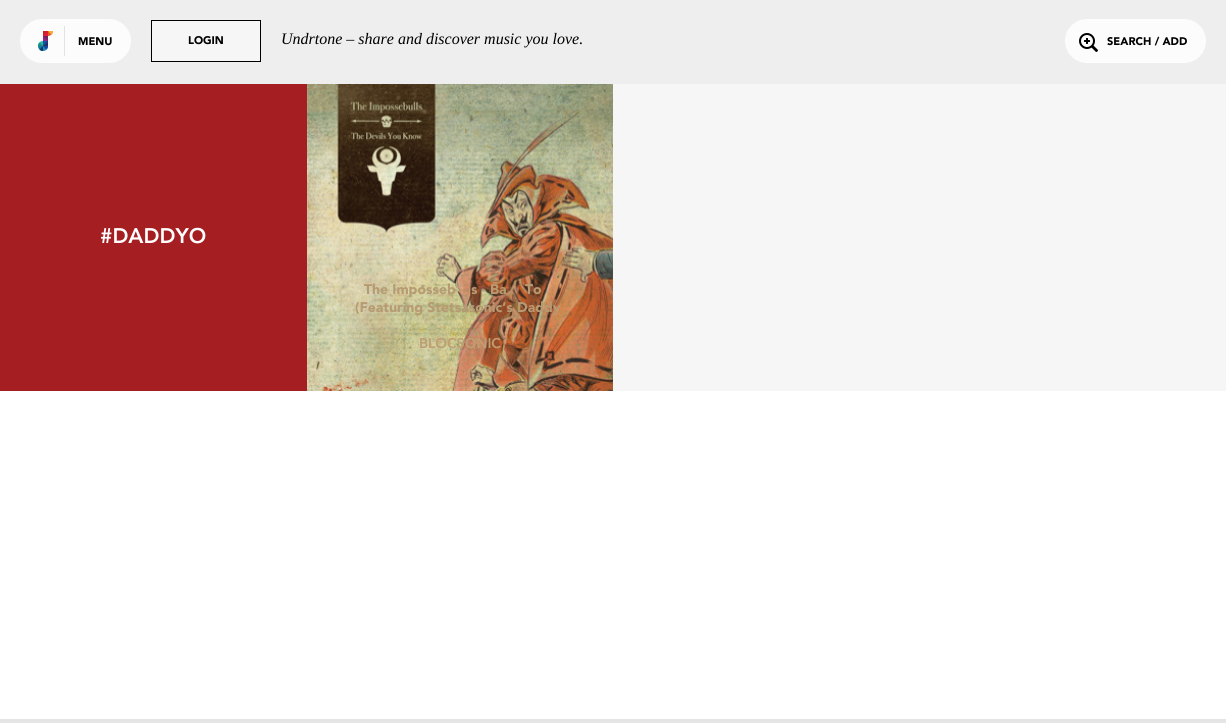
#include <cairo.h>
#include <math.h>
#include <stddef.h>


static void round_rect(cairo_t *cr, double x, double y, double w, double h, double r) {
    cairo_new_sub_path(cr);
    cairo_arc(cr, x + w - r, y + h - r, r, 0, M_PI / 2);
    cairo_arc(cr, x + r, y + h - r, r, M_PI / 2, M_PI);
    cairo_arc(cr, x + r, y + r, r, M_PI, 1.5 * M_PI);
    cairo_arc(cr, x + w - r, y + r, r, 1.5 * M_PI, 2 * M_PI);
    cairo_close_path(cr);
}

static void picture(cairo_t *cr, const char *path, double x, double y, double w, double h) {
    cairo_surface_t *image = cairo_image_surface_create_from_png(path);
    cairo_save(cr);
    cairo_set_source_surface(cr, image, x, y);
    cairo_rectangle(cr, x, y, w, h);
    cairo_fill(cr);
    cairo_restore(cr);
    cairo_surface_destroy(image);
}

int main(void) {
    cairo_surface_t *surface = cairo_image_surface_create(CAIRO_FORMAT_RGB24, 1226, 723);
    cairo_t *cr = cairo_create(surface);
    cairo_font_options_t *options = cairo_font_options_create();
    cairo_font_options_set_hint_metrics(options, CAIRO_HINT_METRICS_OFF);
    cairo_font_options_set_hint_style(options, CAIRO_HINT_STYLE_NONE);
    cairo_set_font_options(cr, options);
    cairo_set_miter_limit(cr, 4);
    cairo_set_source_rgb(cr, 1, 1, 1);
    cairo_paint(cr);
    cairo_set_source_rgb(cr, 0.933, 0.933, 0.933);
    cairo_rectangle(cr, 0, 0, 1226, 84);
    cairo_fill(cr);
    cairo_set_source_rgb(cr, 0.988, 0.988, 0.988);
    round_rect(cr, 20, 19, 111, 44, 22);
    cairo_fill(cr);
    picture(cr, "img1.png", 38, 31, 15, 20);
    cairo_set_source_rgb(cr, 0.89, 0.89, 0.89);
    cairo_rectangle(cr, 64, 26, 1, 30);
    cairo_fill(cr);
    cairo_select_font_face(cr, "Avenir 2 Black", CAIRO_FONT_SLANT_NORMAL, CAIRO_FONT_WEIGHT_NORMAL);
    cairo_set_font_size(cr, 11);
    cairo_set_source_rgb(cr, 0, 0, 0);
    cairo_move_to(cr, 78, 45);
    cairo_show_text(cr, "MENU");
    cairo_set_source_rgb(cr, 0.961, 0.961, 0.961);
    cairo_rectangle(cr, 151.5, 20.5, 109, 41);
    cairo_fill_preserve(cr);
    cairo_set_source_rgb(cr, 0, 0, 0);
    cairo_set_line_width(cr, 1);
    cairo_stroke(cr);
    cairo_move_to(cr, 188, 44);
    cairo_show_text(cr, "LOGIN");
    cairo_select_font_face(cr, "Liberation Serif", CAIRO_FONT_SLANT_ITALIC, CAIRO_FONT_WEIGHT_NORMAL);
    cairo_set_font_size(cr, 16);
    cairo_move_to(cr, 281, 44);
    cairo_show_text(cr, "Undrtone – share and discover music you love.");
    cairo_set_source_rgb(cr, 0.988, 0.988, 0.988);
    round_rect(cr, 1065, 19, 141, 44, 22);
    cairo_fill(cr);
    picture(cr, "img2.png", 1079, 33, 19, 19);
    cairo_select_font_face(cr, "Avenir 2 Black", CAIRO_FONT_SLANT_NORMAL, CAIRO_FONT_WEIGHT_NORMAL);
    cairo_set_font_size(cr, 11);
    cairo_set_source_rgb(cr, 0, 0, 0);
    cairo_move_to(cr, 1107, 45);
    cairo_show_text(cr, "SEARCH / ADD");
    cairo_set_source_rgb(cr, 0.961, 0.961, 0.961);
    cairo_rectangle(cr, 307, 84, 919, 307);
    cairo_fill(cr);
    cairo_set_source_rgb(cr, 0.643, 0.118, 0.133);
    cairo_rectangle(cr, 0, 84, 307, 307);
    cairo_fill(cr);
    cairo_select_font_face(cr, "Avenir Black", CAIRO_FONT_SLANT_NORMAL, CAIRO_FONT_WEIGHT_NORMAL);
    cairo_set_font_size(cr, 21);
    cairo_set_source_rgb(cr, 1, 1, 1);
    cairo_move_to(cr, 100, 243);
    cairo_show_text(cr, "#DADDYO");
    picture(cr, "img3.png", 307, 84, 306, 307);
    cairo_select_font_face(cr, "Avenir 2 Black", CAIRO_FONT_SLANT_NORMAL, CAIRO_FONT_WEIGHT_NORMAL);
    cairo_set_font_size(cr, 14);
    cairo_set_source_rgb(cr, 0.714, 0.604, 0.447);
    cairo_move_to(cr, 364, 294);
    cairo_show_text(cr, "The Imposseb");
    cairo_move_to(cr, 471, 294);
    cairo_show_text(cr, "s - Ba");
    cairo_move_to(cr, 525, 294);
    cairo_show_text(cr, "To");
    cairo_move_to(cr, 355, 312);
    cairo_show_text(cr, "(Featuring Stetsasonic’s Daddy");
    cairo_select_font_face(cr, "Avenir Black", CAIRO_FONT_SLANT_NORMAL, CAIRO_FONT_WEIGHT_NORMAL);
    cairo_set_source_rgb(cr, 0.745, 0.62, 0.447);
    cairo_move_to(cr, 419, 348);
    cairo_show_text(cr, "BLOCSONIC");
    cairo_set_source_rgb(cr, 0.898, 0.898, 0.898);
    cairo_rectangle(cr, 0, 719, 1226, 4);
    cairo_fill(cr);
    cairo_surface_write_to_png(surface, "page.png");
    cairo_font_options_destroy(options);
    cairo_destroy(cr);
    cairo_surface_destroy(surface);
    return 0;
}
